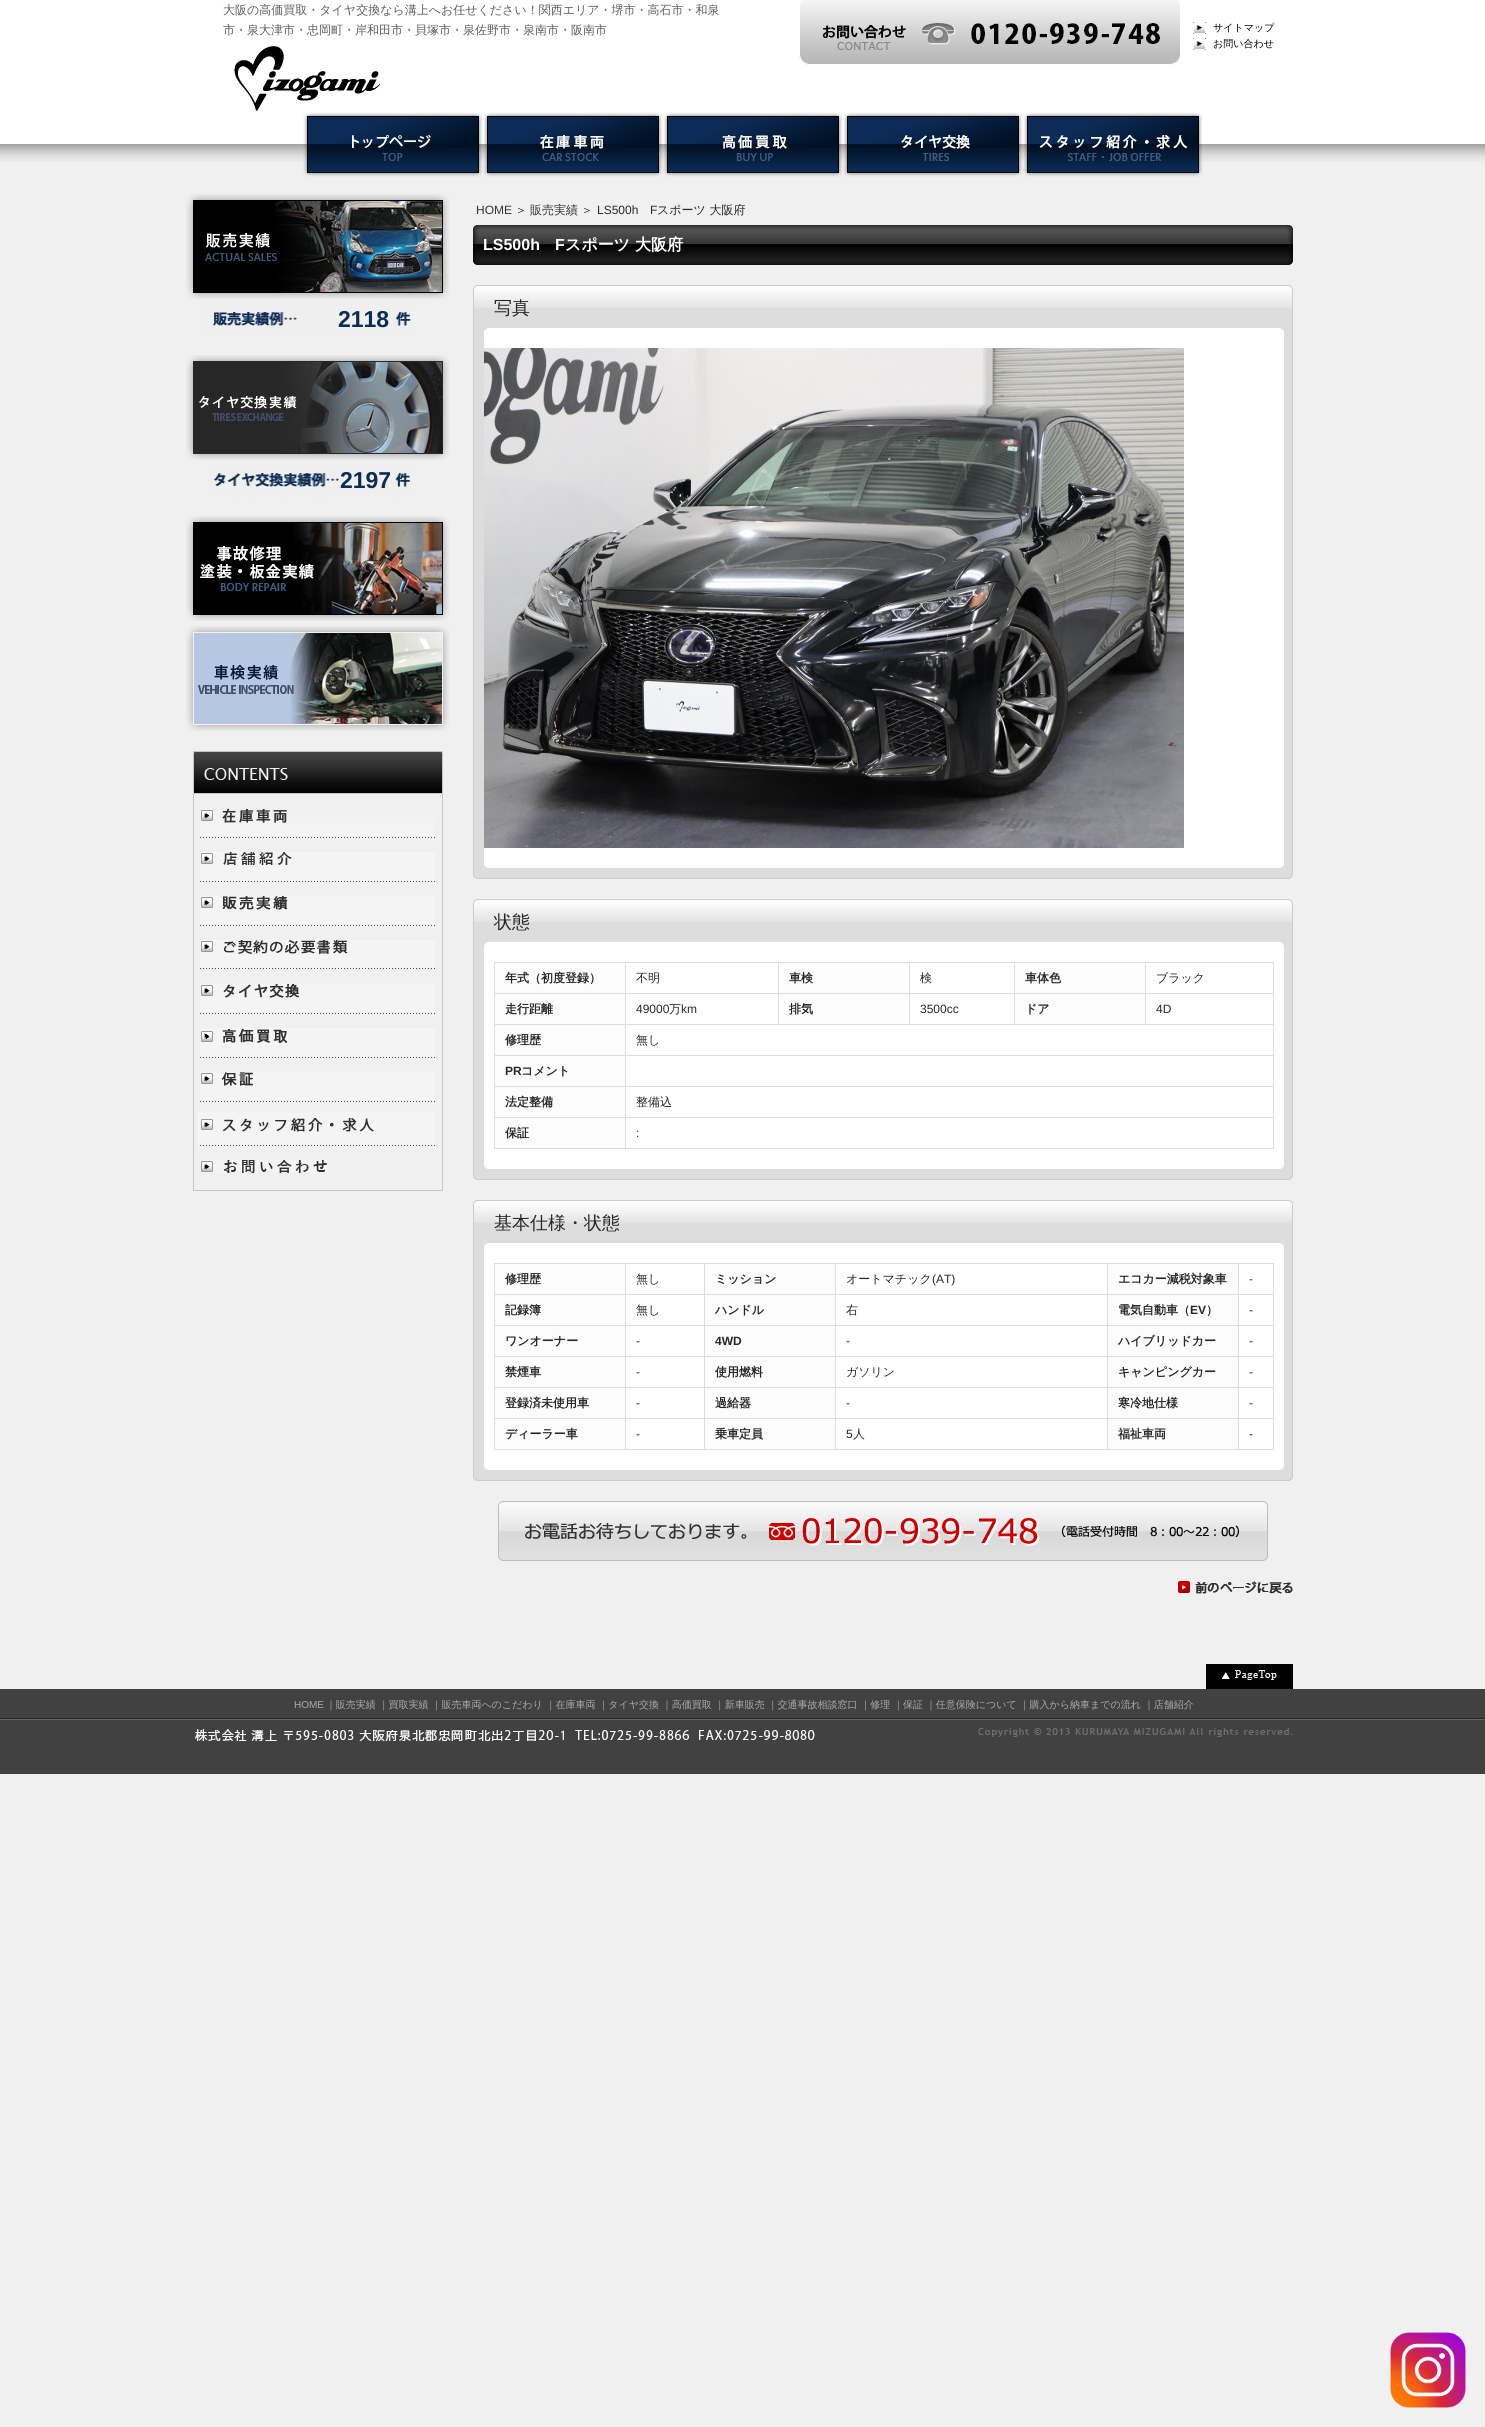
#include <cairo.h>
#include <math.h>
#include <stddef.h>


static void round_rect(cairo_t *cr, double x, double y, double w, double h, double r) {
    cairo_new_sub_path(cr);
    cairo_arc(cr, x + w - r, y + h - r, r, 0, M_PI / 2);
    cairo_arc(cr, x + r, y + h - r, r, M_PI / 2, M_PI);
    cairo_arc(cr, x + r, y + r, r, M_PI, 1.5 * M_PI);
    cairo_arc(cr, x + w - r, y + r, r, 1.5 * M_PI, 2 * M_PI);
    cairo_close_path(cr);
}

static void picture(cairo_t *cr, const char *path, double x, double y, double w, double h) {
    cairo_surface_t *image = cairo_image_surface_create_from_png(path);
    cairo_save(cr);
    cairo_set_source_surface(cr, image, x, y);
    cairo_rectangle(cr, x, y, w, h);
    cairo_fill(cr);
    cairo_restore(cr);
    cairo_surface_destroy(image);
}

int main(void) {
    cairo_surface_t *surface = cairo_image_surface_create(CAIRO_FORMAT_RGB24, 1485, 2427);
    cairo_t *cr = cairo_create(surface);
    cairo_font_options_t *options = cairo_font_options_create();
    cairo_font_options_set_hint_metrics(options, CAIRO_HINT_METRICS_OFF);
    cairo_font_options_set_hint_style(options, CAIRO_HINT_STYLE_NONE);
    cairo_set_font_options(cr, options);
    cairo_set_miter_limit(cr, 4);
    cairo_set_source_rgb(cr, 0.941, 0.941, 0.941);
    cairo_paint(cr);
    picture(cr, "img1.png", 0, 1689, 1485, 85);
    picture(cr, "img2.png", 0, 0, 1485, 162);
    cairo_select_font_face(cr, "WenQuanYi Zen Hei Medium", CAIRO_FONT_SLANT_NORMAL, CAIRO_FONT_WEIGHT_NORMAL);
    cairo_set_font_size(cr, 12);
    cairo_set_source_rgb(cr, 0.365, 0.365, 0.365);
    cairo_move_to(cr, 223, 14);
    cairo_show_text(cr, "大阪の高価買取・タイヤ交換なら溝上へお任せください！関西エリア・堺市・高石市・和泉");
    cairo_move_to(cr, 223, 34);
    cairo_show_text(cr, "市・泉大津市・忠岡町・岸和田市・貝塚市・泉佐野市・泉南市・阪南市");
    picture(cr, "img3.png", 799, 0, 382, 65);
    picture(cr, "img4.png", 1193, 22, 13, 12);
    cairo_set_font_size(cr, 10);
    cairo_set_source_rgb(cr, 0, 0, 0);
    cairo_move_to(cr, 1213, 31);
    cairo_show_text(cr, "サイトマップ");
    picture(cr, "img4.png", 1193, 38, 13, 12);
    cairo_move_to(cr, 1213, 47);
    cairo_show_text(cr, "お問い合わせ");
    picture(cr, "img5.png", 234, 46, 146, 65);
    picture(cr, "img6.png", 303, 112, 180, 65);
    picture(cr, "img7.png", 483, 112, 180, 65);
    picture(cr, "img8.png", 663, 112, 180, 65);
    picture(cr, "img9.png", 843, 112, 180, 65);
    picture(cr, "img10.png", 1023, 112, 180, 65);
    picture(cr, "img11.png", 186, 194, 264, 105);
    picture(cr, "img12.png", 193, 200, 250, 93);
    picture(cr, "img13.png", 202, 304, 209, 32);
    cairo_select_font_face(cr, "Liberation Sans", CAIRO_FONT_SLANT_NORMAL, CAIRO_FONT_WEIGHT_BOLD);
    cairo_set_font_size(cr, 23);
    cairo_set_source_rgb(cr, 0.047, 0.169, 0.341);
    cairo_move_to(cr, 338, 327);
    cairo_show_text(cr, "2118");
    picture(cr, "img11.png", 186, 355, 264, 105);
    picture(cr, "img14.png", 193, 361, 250, 93);
    picture(cr, "img15.png", 209, 465, 202, 32);
    cairo_move_to(cr, 340, 488);
    cairo_show_text(cr, "2197");
    picture(cr, "img11.png", 186, 516, 264, 105);
    picture(cr, "img16.png", 193, 522, 250, 93);
    picture(cr, "img11.png", 186, 626, 264, 105);
    picture(cr, "img17.png", 194, 633, 248, 91);
    cairo_rectangle(cr, 193.5, 751.5, 249, 439);
    cairo_set_source_rgb(cr, 0.773, 0.773, 0.773);
    cairo_set_line_width(cr, 1);
    cairo_stroke(cr);
    picture(cr, "img18.png", 194, 752, 248, 42);
    picture(cr, "img19.png", 200, 808, 235, 30);
    picture(cr, "img20.png", 200, 852, 235, 30);
    picture(cr, "img21.png", 200, 896, 235, 30);
    picture(cr, "img22.png", 200, 940, 235, 29);
    picture(cr, "img23.png", 200, 984, 235, 30);
    picture(cr, "img24.png", 200, 1028, 235, 30);
    picture(cr, "img25.png", 200, 1072, 235, 30);
    picture(cr, "img26.png", 198, 1112, 237, 34);
    picture(cr, "img27.png", 201, 1160, 126, 13);
    cairo_select_font_face(cr, "Liberation Sans", CAIRO_FONT_SLANT_NORMAL, CAIRO_FONT_WEIGHT_NORMAL);
    cairo_set_font_size(cr, 12);
    cairo_set_source_rgb(cr, 0.2, 0.2, 0.2);
    cairo_move_to(cr, 476, 214);
    cairo_show_text(cr, "HOME");
    cairo_select_font_face(cr, "WenQuanYi Zen Hei Medium", CAIRO_FONT_SLANT_NORMAL, CAIRO_FONT_WEIGHT_NORMAL);
    cairo_set_source_rgb(cr, 0.153, 0.153, 0.153);
    cairo_move_to(cr, 515, 214);
    cairo_show_text(cr, "＞");
    cairo_set_source_rgb(cr, 0.2, 0.2, 0.2);
    cairo_move_to(cr, 530, 214);
    cairo_show_text(cr, "販売実績");
    cairo_set_source_rgb(cr, 0.153, 0.153, 0.153);
    cairo_move_to(cr, 581, 214);
    cairo_show_text(cr, "＞");
    cairo_select_font_face(cr, "Liberation Sans", CAIRO_FONT_SLANT_NORMAL, CAIRO_FONT_WEIGHT_NORMAL);
    cairo_move_to(cr, 597, 214);
    cairo_show_text(cr, "LS500h");
    cairo_move_to(cr, 650, 214);
    cairo_show_text(cr, "F");
    cairo_select_font_face(cr, "WenQuanYi Zen Hei Medium", CAIRO_FONT_SLANT_NORMAL, CAIRO_FONT_WEIGHT_NORMAL);
    cairo_move_to(cr, 657, 214);
    cairo_show_text(cr, "スポーツ 大阪府");
    picture(cr, "img28.png", 473, 225, 820, 40);
    cairo_select_font_face(cr, "Liberation Sans", CAIRO_FONT_SLANT_NORMAL, CAIRO_FONT_WEIGHT_BOLD);
    cairo_set_font_size(cr, 16);
    cairo_set_source_rgb(cr, 1, 1, 1);
    cairo_move_to(cr, 483, 250);
    cairo_show_text(cr, "LS500h");
    cairo_move_to(cr, 555, 250);
    cairo_show_text(cr, "F");
    cairo_select_font_face(cr, "WenQuanYi Zen Hei", CAIRO_FONT_SLANT_NORMAL, CAIRO_FONT_WEIGHT_BOLD);
    cairo_move_to(cr, 565, 250);
    cairo_show_text(cr, "スポーツ 大阪府");
    cairo_set_source_rgb(cr, 0.867, 0.867, 0.867);
    round_rect(cr, 473, 285, 820, 594, 5);
    cairo_fill(cr);
    picture(cr, "img29.png", 473, 286, 820, 22);
    round_rect(cr, 473.5, 285.5, 819, 593, 4.5);
    cairo_set_source_rgb(cr, 0.8, 0.8, 0.8);
    cairo_stroke(cr);
    cairo_select_font_face(cr, "WenQuanYi Zen Hei Medium", CAIRO_FONT_SLANT_NORMAL, CAIRO_FONT_WEIGHT_NORMAL);
    cairo_set_font_size(cr, 18);
    cairo_set_source_rgb(cr, 0.153, 0.153, 0.153);
    cairo_move_to(cr, 494, 314);
    cairo_show_text(cr, "写真");
    cairo_set_source_rgb(cr, 1, 1, 1);
    round_rect(cr, 484, 328, 800, 540, 5);
    cairo_fill(cr);
    picture(cr, "img30.png", 484, 348, 700, 500);
    cairo_set_source_rgb(cr, 0.867, 0.867, 0.867);
    round_rect(cr, 473, 899, 820, 281, 5);
    cairo_fill(cr);
    picture(cr, "img29.png", 473, 900, 820, 22);
    round_rect(cr, 473.5, 899.5, 819, 280, 4.5);
    cairo_set_source_rgb(cr, 0.8, 0.8, 0.8);
    cairo_stroke(cr);
    cairo_set_source_rgb(cr, 0.153, 0.153, 0.153);
    cairo_move_to(cr, 494, 928);
    cairo_show_text(cr, "状態");
    cairo_set_source_rgb(cr, 1, 1, 1);
    round_rect(cr, 484, 942, 800, 227, 5);
    cairo_fill(cr);
    cairo_set_source_rgb(cr, 0.867, 0.867, 0.867);
    cairo_rectangle(cr, 494, 962, 780, 1);
    cairo_fill(cr);
    cairo_rectangle(cr, 1273, 962, 1, 187);
    cairo_fill(cr);
    cairo_rectangle(cr, 494, 1148, 780, 1);
    cairo_fill(cr);
    cairo_rectangle(cr, 494, 962, 1, 187);
    cairo_fill(cr);
    cairo_set_source_rgb(cr, 0.988, 0.988, 0.988);
    cairo_rectangle(cr, 495, 963, 130, 30);
    cairo_fill(cr);
    cairo_select_font_face(cr, "WenQuanYi Zen Hei", CAIRO_FONT_SLANT_NORMAL, CAIRO_FONT_WEIGHT_BOLD);
    cairo_set_font_size(cr, 12);
    cairo_set_source_rgb(cr, 0.153, 0.153, 0.153);
    cairo_move_to(cr, 505, 982);
    cairo_show_text(cr, "年式（初度登録）");
    cairo_set_source_rgb(cr, 0.867, 0.867, 0.867);
    cairo_rectangle(cr, 1145, 993, 129, 1);
    cairo_fill(cr);
    cairo_rectangle(cr, 625, 1024, 649, 1);
    cairo_fill(cr);
    cairo_rectangle(cr, 1145, 993, 1, 32);
    cairo_fill(cr);
    cairo_rectangle(cr, 1014, 993, 132, 1);
    cairo_fill(cr);
    cairo_rectangle(cr, 1014, 993, 1, 32);
    cairo_fill(cr);
    cairo_rectangle(cr, 909, 993, 106, 1);
    cairo_fill(cr);
    cairo_rectangle(cr, 909, 993, 1, 32);
    cairo_fill(cr);
    cairo_rectangle(cr, 778, 993, 132, 1);
    cairo_fill(cr);
    cairo_rectangle(cr, 778, 993, 1, 32);
    cairo_fill(cr);
    cairo_rectangle(cr, 625, 993, 154, 1);
    cairo_fill(cr);
    cairo_rectangle(cr, 625, 1055, 649, 1);
    cairo_fill(cr);
    cairo_rectangle(cr, 625, 1086, 649, 1);
    cairo_fill(cr);
    cairo_rectangle(cr, 625, 1117, 649, 1);
    cairo_fill(cr);
    cairo_rectangle(cr, 625, 1117, 1, 32);
    cairo_fill(cr);
    cairo_rectangle(cr, 494, 1117, 132, 1);
    cairo_fill(cr);
    cairo_rectangle(cr, 625, 1086, 1, 32);
    cairo_fill(cr);
    cairo_rectangle(cr, 494, 1086, 132, 1);
    cairo_fill(cr);
    cairo_rectangle(cr, 625, 1055, 1, 32);
    cairo_fill(cr);
    cairo_rectangle(cr, 494, 1055, 132, 1);
    cairo_fill(cr);
    cairo_rectangle(cr, 625, 1024, 1, 32);
    cairo_fill(cr);
    cairo_rectangle(cr, 494, 1024, 132, 1);
    cairo_fill(cr);
    cairo_rectangle(cr, 625, 993, 1, 32);
    cairo_fill(cr);
    cairo_rectangle(cr, 494, 993, 132, 1);
    cairo_fill(cr);
    cairo_rectangle(cr, 625, 962, 1, 32);
    cairo_fill(cr);
    cairo_select_font_face(cr, "WenQuanYi Zen Hei Medium", CAIRO_FONT_SLANT_NORMAL, CAIRO_FONT_WEIGHT_NORMAL);
    cairo_set_source_rgb(cr, 0.153, 0.153, 0.153);
    cairo_move_to(cr, 636, 982);
    cairo_show_text(cr, "不明");
    cairo_set_source_rgb(cr, 0.988, 0.988, 0.988);
    cairo_rectangle(cr, 779, 963, 130, 30);
    cairo_fill(cr);
    cairo_set_source_rgb(cr, 0.867, 0.867, 0.867);
    cairo_rectangle(cr, 778, 962, 1, 32);
    cairo_fill(cr);
    cairo_select_font_face(cr, "WenQuanYi Zen Hei", CAIRO_FONT_SLANT_NORMAL, CAIRO_FONT_WEIGHT_BOLD);
    cairo_set_source_rgb(cr, 0.153, 0.153, 0.153);
    cairo_move_to(cr, 789, 982);
    cairo_show_text(cr, "車検");
    cairo_set_source_rgb(cr, 0.867, 0.867, 0.867);
    cairo_rectangle(cr, 909, 962, 1, 32);
    cairo_fill(cr);
    cairo_select_font_face(cr, "WenQuanYi Zen Hei Medium", CAIRO_FONT_SLANT_NORMAL, CAIRO_FONT_WEIGHT_NORMAL);
    cairo_set_source_rgb(cr, 0.153, 0.153, 0.153);
    cairo_move_to(cr, 920, 982);
    cairo_show_text(cr, "検");
    cairo_set_source_rgb(cr, 0.988, 0.988, 0.988);
    cairo_rectangle(cr, 1015, 963, 130, 30);
    cairo_fill(cr);
    cairo_set_source_rgb(cr, 0.867, 0.867, 0.867);
    cairo_rectangle(cr, 1014, 962, 1, 32);
    cairo_fill(cr);
    cairo_select_font_face(cr, "WenQuanYi Zen Hei", CAIRO_FONT_SLANT_NORMAL, CAIRO_FONT_WEIGHT_BOLD);
    cairo_set_source_rgb(cr, 0.153, 0.153, 0.153);
    cairo_move_to(cr, 1025, 982);
    cairo_show_text(cr, "車体色");
    cairo_set_source_rgb(cr, 0.867, 0.867, 0.867);
    cairo_rectangle(cr, 1145, 962, 1, 32);
    cairo_fill(cr);
    cairo_select_font_face(cr, "WenQuanYi Zen Hei Medium", CAIRO_FONT_SLANT_NORMAL, CAIRO_FONT_WEIGHT_NORMAL);
    cairo_set_source_rgb(cr, 0.153, 0.153, 0.153);
    cairo_move_to(cr, 1156, 982);
    cairo_show_text(cr, "ブラック");
    cairo_set_source_rgb(cr, 0.988, 0.988, 0.988);
    cairo_rectangle(cr, 495, 994, 130, 30);
    cairo_fill(cr);
    cairo_select_font_face(cr, "WenQuanYi Zen Hei", CAIRO_FONT_SLANT_NORMAL, CAIRO_FONT_WEIGHT_BOLD);
    cairo_set_source_rgb(cr, 0.153, 0.153, 0.153);
    cairo_move_to(cr, 505, 1013);
    cairo_show_text(cr, "走行距離");
    cairo_select_font_face(cr, "Liberation Sans", CAIRO_FONT_SLANT_NORMAL, CAIRO_FONT_WEIGHT_NORMAL);
    cairo_move_to(cr, 636, 1013);
    cairo_show_text(cr, "49000");
    cairo_select_font_face(cr, "WenQuanYi Zen Hei Medium", CAIRO_FONT_SLANT_NORMAL, CAIRO_FONT_WEIGHT_NORMAL);
    cairo_move_to(cr, 669, 1013);
    cairo_show_text(cr, "万");
    cairo_select_font_face(cr, "Liberation Sans", CAIRO_FONT_SLANT_NORMAL, CAIRO_FONT_WEIGHT_NORMAL);
    cairo_move_to(cr, 681, 1013);
    cairo_show_text(cr, "km");
    cairo_set_source_rgb(cr, 0.988, 0.988, 0.988);
    cairo_rectangle(cr, 779, 994, 130, 30);
    cairo_fill(cr);
    cairo_select_font_face(cr, "WenQuanYi Zen Hei", CAIRO_FONT_SLANT_NORMAL, CAIRO_FONT_WEIGHT_BOLD);
    cairo_set_source_rgb(cr, 0.153, 0.153, 0.153);
    cairo_move_to(cr, 789, 1013);
    cairo_show_text(cr, "排気");
    cairo_select_font_face(cr, "Liberation Sans", CAIRO_FONT_SLANT_NORMAL, CAIRO_FONT_WEIGHT_NORMAL);
    cairo_move_to(cr, 920, 1013);
    cairo_show_text(cr, "3500cc");
    cairo_set_source_rgb(cr, 0.988, 0.988, 0.988);
    cairo_rectangle(cr, 1015, 994, 130, 30);
    cairo_fill(cr);
    cairo_select_font_face(cr, "WenQuanYi Zen Hei", CAIRO_FONT_SLANT_NORMAL, CAIRO_FONT_WEIGHT_BOLD);
    cairo_set_source_rgb(cr, 0.153, 0.153, 0.153);
    cairo_move_to(cr, 1025, 1013);
    cairo_show_text(cr, "ドア");
    cairo_select_font_face(cr, "Liberation Sans", CAIRO_FONT_SLANT_NORMAL, CAIRO_FONT_WEIGHT_NORMAL);
    cairo_move_to(cr, 1156, 1013);
    cairo_show_text(cr, "4D");
    cairo_set_source_rgb(cr, 0.988, 0.988, 0.988);
    cairo_rectangle(cr, 495, 1025, 130, 30);
    cairo_fill(cr);
    cairo_select_font_face(cr, "WenQuanYi Zen Hei", CAIRO_FONT_SLANT_NORMAL, CAIRO_FONT_WEIGHT_BOLD);
    cairo_set_source_rgb(cr, 0.153, 0.153, 0.153);
    cairo_move_to(cr, 505, 1044);
    cairo_show_text(cr, "修理歴");
    cairo_select_font_face(cr, "WenQuanYi Zen Hei Medium", CAIRO_FONT_SLANT_NORMAL, CAIRO_FONT_WEIGHT_NORMAL);
    cairo_move_to(cr, 636, 1044);
    cairo_show_text(cr, "無し");
    cairo_set_source_rgb(cr, 0.988, 0.988, 0.988);
    cairo_rectangle(cr, 495, 1056, 130, 30);
    cairo_fill(cr);
    cairo_select_font_face(cr, "Liberation Sans", CAIRO_FONT_SLANT_NORMAL, CAIRO_FONT_WEIGHT_BOLD);
    cairo_set_source_rgb(cr, 0.153, 0.153, 0.153);
    cairo_move_to(cr, 505, 1075);
    cairo_show_text(cr, "PR");
    cairo_select_font_face(cr, "WenQuanYi Zen Hei", CAIRO_FONT_SLANT_NORMAL, CAIRO_FONT_WEIGHT_BOLD);
    cairo_move_to(cr, 521, 1075);
    cairo_show_text(cr, "コメント");
    cairo_set_source_rgb(cr, 0.988, 0.988, 0.988);
    cairo_rectangle(cr, 495, 1087, 130, 30);
    cairo_fill(cr);
    cairo_set_source_rgb(cr, 0.153, 0.153, 0.153);
    cairo_move_to(cr, 505, 1106);
    cairo_show_text(cr, "法定整備");
    cairo_select_font_face(cr, "WenQuanYi Zen Hei Medium", CAIRO_FONT_SLANT_NORMAL, CAIRO_FONT_WEIGHT_NORMAL);
    cairo_move_to(cr, 636, 1106);
    cairo_show_text(cr, "整備込");
    cairo_set_source_rgb(cr, 0.988, 0.988, 0.988);
    cairo_rectangle(cr, 495, 1118, 130, 30);
    cairo_fill(cr);
    cairo_select_font_face(cr, "WenQuanYi Zen Hei", CAIRO_FONT_SLANT_NORMAL, CAIRO_FONT_WEIGHT_BOLD);
    cairo_set_source_rgb(cr, 0.153, 0.153, 0.153);
    cairo_move_to(cr, 505, 1137);
    cairo_show_text(cr, "保証");
    cairo_select_font_face(cr, "Liberation Sans", CAIRO_FONT_SLANT_NORMAL, CAIRO_FONT_WEIGHT_NORMAL);
    cairo_move_to(cr, 636, 1137);
    cairo_show_text(cr, ":");
    cairo_set_source_rgb(cr, 0.867, 0.867, 0.867);
    round_rect(cr, 473, 1200, 820, 281, 5);
    cairo_fill(cr);
    picture(cr, "img29.png", 473, 1201, 820, 22);
    round_rect(cr, 473.5, 1200.5, 819, 280, 4.5);
    cairo_set_source_rgb(cr, 0.8, 0.8, 0.8);
    cairo_stroke(cr);
    cairo_select_font_face(cr, "WenQuanYi Zen Hei Medium", CAIRO_FONT_SLANT_NORMAL, CAIRO_FONT_WEIGHT_NORMAL);
    cairo_set_font_size(cr, 18);
    cairo_set_source_rgb(cr, 0.153, 0.153, 0.153);
    cairo_move_to(cr, 494, 1229);
    cairo_show_text(cr, "基本仕様・状態");
    cairo_set_source_rgb(cr, 1, 1, 1);
    round_rect(cr, 484, 1243, 800, 227, 5);
    cairo_fill(cr);
    cairo_set_source_rgb(cr, 0.867, 0.867, 0.867);
    cairo_rectangle(cr, 494, 1263, 780, 1);
    cairo_fill(cr);
    cairo_rectangle(cr, 1273, 1263, 1, 187);
    cairo_fill(cr);
    cairo_rectangle(cr, 494, 1449, 780, 1);
    cairo_fill(cr);
    cairo_rectangle(cr, 494, 1263, 1, 187);
    cairo_fill(cr);
    cairo_set_source_rgb(cr, 0.988, 0.988, 0.988);
    cairo_rectangle(cr, 495, 1264, 130, 30);
    cairo_fill(cr);
    cairo_select_font_face(cr, "WenQuanYi Zen Hei", CAIRO_FONT_SLANT_NORMAL, CAIRO_FONT_WEIGHT_BOLD);
    cairo_set_font_size(cr, 12);
    cairo_set_source_rgb(cr, 0.153, 0.153, 0.153);
    cairo_move_to(cr, 505, 1283);
    cairo_show_text(cr, "修理歴");
    cairo_set_source_rgb(cr, 0.867, 0.867, 0.867);
    cairo_rectangle(cr, 1238, 1294, 36, 1);
    cairo_fill(cr);
    cairo_rectangle(cr, 1238, 1325, 36, 1);
    cairo_fill(cr);
    cairo_rectangle(cr, 1238, 1356, 36, 1);
    cairo_fill(cr);
    cairo_rectangle(cr, 1238, 1387, 36, 1);
    cairo_fill(cr);
    cairo_rectangle(cr, 1238, 1418, 36, 1);
    cairo_fill(cr);
    cairo_rectangle(cr, 1238, 1418, 1, 32);
    cairo_fill(cr);
    cairo_rectangle(cr, 1107, 1418, 132, 1);
    cairo_fill(cr);
    cairo_rectangle(cr, 1238, 1387, 1, 32);
    cairo_fill(cr);
    cairo_rectangle(cr, 1107, 1387, 132, 1);
    cairo_fill(cr);
    cairo_rectangle(cr, 1238, 1356, 1, 32);
    cairo_fill(cr);
    cairo_rectangle(cr, 1107, 1356, 132, 1);
    cairo_fill(cr);
    cairo_rectangle(cr, 1238, 1325, 1, 32);
    cairo_fill(cr);
    cairo_rectangle(cr, 1107, 1325, 132, 1);
    cairo_fill(cr);
    cairo_rectangle(cr, 1238, 1294, 1, 32);
    cairo_fill(cr);
    cairo_rectangle(cr, 1107, 1294, 132, 1);
    cairo_fill(cr);
    cairo_rectangle(cr, 1107, 1418, 1, 32);
    cairo_fill(cr);
    cairo_rectangle(cr, 835, 1418, 273, 1);
    cairo_fill(cr);
    cairo_rectangle(cr, 1107, 1387, 1, 32);
    cairo_fill(cr);
    cairo_rectangle(cr, 835, 1387, 273, 1);
    cairo_fill(cr);
    cairo_rectangle(cr, 1107, 1356, 1, 32);
    cairo_fill(cr);
    cairo_rectangle(cr, 835, 1356, 273, 1);
    cairo_fill(cr);
    cairo_rectangle(cr, 1107, 1325, 1, 32);
    cairo_fill(cr);
    cairo_rectangle(cr, 835, 1325, 273, 1);
    cairo_fill(cr);
    cairo_rectangle(cr, 1107, 1294, 1, 32);
    cairo_fill(cr);
    cairo_rectangle(cr, 835, 1294, 273, 1);
    cairo_fill(cr);
    cairo_rectangle(cr, 835, 1418, 1, 32);
    cairo_fill(cr);
    cairo_rectangle(cr, 704, 1418, 132, 1);
    cairo_fill(cr);
    cairo_rectangle(cr, 835, 1387, 1, 32);
    cairo_fill(cr);
    cairo_rectangle(cr, 704, 1387, 132, 1);
    cairo_fill(cr);
    cairo_rectangle(cr, 835, 1356, 1, 32);
    cairo_fill(cr);
    cairo_rectangle(cr, 704, 1356, 132, 1);
    cairo_fill(cr);
    cairo_rectangle(cr, 835, 1325, 1, 32);
    cairo_fill(cr);
    cairo_rectangle(cr, 704, 1325, 132, 1);
    cairo_fill(cr);
    cairo_rectangle(cr, 835, 1294, 1, 32);
    cairo_fill(cr);
    cairo_rectangle(cr, 704, 1294, 132, 1);
    cairo_fill(cr);
    cairo_rectangle(cr, 704, 1418, 1, 32);
    cairo_fill(cr);
    cairo_rectangle(cr, 625, 1418, 80, 1);
    cairo_fill(cr);
    cairo_rectangle(cr, 704, 1387, 1, 32);
    cairo_fill(cr);
    cairo_rectangle(cr, 625, 1387, 80, 1);
    cairo_fill(cr);
    cairo_rectangle(cr, 704, 1356, 1, 32);
    cairo_fill(cr);
    cairo_rectangle(cr, 625, 1356, 80, 1);
    cairo_fill(cr);
    cairo_rectangle(cr, 704, 1325, 1, 32);
    cairo_fill(cr);
    cairo_rectangle(cr, 625, 1325, 80, 1);
    cairo_fill(cr);
    cairo_rectangle(cr, 704, 1294, 1, 32);
    cairo_fill(cr);
    cairo_rectangle(cr, 625, 1294, 80, 1);
    cairo_fill(cr);
    cairo_rectangle(cr, 625, 1418, 1, 32);
    cairo_fill(cr);
    cairo_rectangle(cr, 494, 1418, 132, 1);
    cairo_fill(cr);
    cairo_rectangle(cr, 625, 1387, 1, 32);
    cairo_fill(cr);
    cairo_rectangle(cr, 494, 1387, 132, 1);
    cairo_fill(cr);
    cairo_rectangle(cr, 625, 1356, 1, 32);
    cairo_fill(cr);
    cairo_rectangle(cr, 494, 1356, 132, 1);
    cairo_fill(cr);
    cairo_rectangle(cr, 625, 1325, 1, 32);
    cairo_fill(cr);
    cairo_rectangle(cr, 494, 1325, 132, 1);
    cairo_fill(cr);
    cairo_rectangle(cr, 625, 1294, 1, 32);
    cairo_fill(cr);
    cairo_rectangle(cr, 494, 1294, 132, 1);
    cairo_fill(cr);
    cairo_rectangle(cr, 625, 1263, 1, 32);
    cairo_fill(cr);
    cairo_select_font_face(cr, "WenQuanYi Zen Hei Medium", CAIRO_FONT_SLANT_NORMAL, CAIRO_FONT_WEIGHT_NORMAL);
    cairo_set_source_rgb(cr, 0.153, 0.153, 0.153);
    cairo_move_to(cr, 636, 1283);
    cairo_show_text(cr, "無し");
    cairo_set_source_rgb(cr, 0.988, 0.988, 0.988);
    cairo_rectangle(cr, 705, 1264, 130, 30);
    cairo_fill(cr);
    cairo_set_source_rgb(cr, 0.867, 0.867, 0.867);
    cairo_rectangle(cr, 704, 1263, 1, 32);
    cairo_fill(cr);
    cairo_select_font_face(cr, "WenQuanYi Zen Hei", CAIRO_FONT_SLANT_NORMAL, CAIRO_FONT_WEIGHT_BOLD);
    cairo_set_source_rgb(cr, 0.153, 0.153, 0.153);
    cairo_move_to(cr, 715, 1283);
    cairo_show_text(cr, "ミッション");
    cairo_set_source_rgb(cr, 0.867, 0.867, 0.867);
    cairo_rectangle(cr, 835, 1263, 1, 32);
    cairo_fill(cr);
    cairo_select_font_face(cr, "WenQuanYi Zen Hei Medium", CAIRO_FONT_SLANT_NORMAL, CAIRO_FONT_WEIGHT_NORMAL);
    cairo_set_source_rgb(cr, 0.153, 0.153, 0.153);
    cairo_move_to(cr, 846, 1283);
    cairo_show_text(cr, "オートマチック");
    cairo_select_font_face(cr, "Liberation Sans", CAIRO_FONT_SLANT_NORMAL, CAIRO_FONT_WEIGHT_NORMAL);
    cairo_move_to(cr, 932, 1283);
    cairo_show_text(cr, "(AT)");
    cairo_set_source_rgb(cr, 0.988, 0.988, 0.988);
    cairo_rectangle(cr, 1108, 1264, 130, 30);
    cairo_fill(cr);
    cairo_set_source_rgb(cr, 0.867, 0.867, 0.867);
    cairo_rectangle(cr, 1107, 1263, 1, 32);
    cairo_fill(cr);
    cairo_select_font_face(cr, "WenQuanYi Zen Hei", CAIRO_FONT_SLANT_NORMAL, CAIRO_FONT_WEIGHT_BOLD);
    cairo_set_source_rgb(cr, 0.153, 0.153, 0.153);
    cairo_move_to(cr, 1118, 1283);
    cairo_show_text(cr, "エコカー減税対象車");
    cairo_set_source_rgb(cr, 0.867, 0.867, 0.867);
    cairo_rectangle(cr, 1238, 1263, 1, 32);
    cairo_fill(cr);
    cairo_select_font_face(cr, "Liberation Sans", CAIRO_FONT_SLANT_NORMAL, CAIRO_FONT_WEIGHT_NORMAL);
    cairo_set_source_rgb(cr, 0.153, 0.153, 0.153);
    cairo_move_to(cr, 1249, 1283);
    cairo_show_text(cr, "-");
    cairo_set_source_rgb(cr, 0.988, 0.988, 0.988);
    cairo_rectangle(cr, 495, 1295, 130, 30);
    cairo_fill(cr);
    cairo_select_font_face(cr, "WenQuanYi Zen Hei", CAIRO_FONT_SLANT_NORMAL, CAIRO_FONT_WEIGHT_BOLD);
    cairo_set_source_rgb(cr, 0.153, 0.153, 0.153);
    cairo_move_to(cr, 505, 1314);
    cairo_show_text(cr, "記録簿");
    cairo_select_font_face(cr, "WenQuanYi Zen Hei Medium", CAIRO_FONT_SLANT_NORMAL, CAIRO_FONT_WEIGHT_NORMAL);
    cairo_move_to(cr, 636, 1314);
    cairo_show_text(cr, "無し");
    cairo_set_source_rgb(cr, 0.988, 0.988, 0.988);
    cairo_rectangle(cr, 705, 1295, 130, 30);
    cairo_fill(cr);
    cairo_select_font_face(cr, "WenQuanYi Zen Hei", CAIRO_FONT_SLANT_NORMAL, CAIRO_FONT_WEIGHT_BOLD);
    cairo_set_source_rgb(cr, 0.153, 0.153, 0.153);
    cairo_move_to(cr, 715, 1314);
    cairo_show_text(cr, "ハンドル");
    cairo_select_font_face(cr, "WenQuanYi Zen Hei Medium", CAIRO_FONT_SLANT_NORMAL, CAIRO_FONT_WEIGHT_NORMAL);
    cairo_move_to(cr, 846, 1314);
    cairo_show_text(cr, "右");
    cairo_set_source_rgb(cr, 0.988, 0.988, 0.988);
    cairo_rectangle(cr, 1108, 1295, 130, 30);
    cairo_fill(cr);
    cairo_select_font_face(cr, "WenQuanYi Zen Hei", CAIRO_FONT_SLANT_NORMAL, CAIRO_FONT_WEIGHT_BOLD);
    cairo_set_source_rgb(cr, 0.153, 0.153, 0.153);
    cairo_move_to(cr, 1118, 1314);
    cairo_show_text(cr, "電気自動車（");
    cairo_select_font_face(cr, "Liberation Sans", CAIRO_FONT_SLANT_NORMAL, CAIRO_FONT_WEIGHT_BOLD);
    cairo_move_to(cr, 1190, 1314);
    cairo_show_text(cr, "EV");
    cairo_select_font_face(cr, "WenQuanYi Zen Hei", CAIRO_FONT_SLANT_NORMAL, CAIRO_FONT_WEIGHT_BOLD);
    cairo_move_to(cr, 1206, 1314);
    cairo_show_text(cr, "）");
    cairo_select_font_face(cr, "Liberation Sans", CAIRO_FONT_SLANT_NORMAL, CAIRO_FONT_WEIGHT_NORMAL);
    cairo_move_to(cr, 1249, 1314);
    cairo_show_text(cr, "-");
    cairo_set_source_rgb(cr, 0.988, 0.988, 0.988);
    cairo_rectangle(cr, 495, 1326, 130, 30);
    cairo_fill(cr);
    cairo_select_font_face(cr, "WenQuanYi Zen Hei", CAIRO_FONT_SLANT_NORMAL, CAIRO_FONT_WEIGHT_BOLD);
    cairo_set_source_rgb(cr, 0.153, 0.153, 0.153);
    cairo_move_to(cr, 505, 1345);
    cairo_show_text(cr, "ワンオーナー");
    cairo_select_font_face(cr, "Liberation Sans", CAIRO_FONT_SLANT_NORMAL, CAIRO_FONT_WEIGHT_NORMAL);
    cairo_move_to(cr, 636, 1345);
    cairo_show_text(cr, "-");
    cairo_set_source_rgb(cr, 0.988, 0.988, 0.988);
    cairo_rectangle(cr, 705, 1326, 130, 30);
    cairo_fill(cr);
    cairo_select_font_face(cr, "Liberation Sans", CAIRO_FONT_SLANT_NORMAL, CAIRO_FONT_WEIGHT_BOLD);
    cairo_set_source_rgb(cr, 0.153, 0.153, 0.153);
    cairo_move_to(cr, 715, 1345);
    cairo_show_text(cr, "4WD");
    cairo_select_font_face(cr, "Liberation Sans", CAIRO_FONT_SLANT_NORMAL, CAIRO_FONT_WEIGHT_NORMAL);
    cairo_move_to(cr, 846, 1345);
    cairo_show_text(cr, "-");
    cairo_set_source_rgb(cr, 0.988, 0.988, 0.988);
    cairo_rectangle(cr, 1108, 1326, 130, 30);
    cairo_fill(cr);
    cairo_select_font_face(cr, "WenQuanYi Zen Hei", CAIRO_FONT_SLANT_NORMAL, CAIRO_FONT_WEIGHT_BOLD);
    cairo_set_source_rgb(cr, 0.153, 0.153, 0.153);
    cairo_move_to(cr, 1118, 1345);
    cairo_show_text(cr, "ハイブリッドカー");
    cairo_select_font_face(cr, "Liberation Sans", CAIRO_FONT_SLANT_NORMAL, CAIRO_FONT_WEIGHT_NORMAL);
    cairo_move_to(cr, 1249, 1345);
    cairo_show_text(cr, "-");
    cairo_set_source_rgb(cr, 0.988, 0.988, 0.988);
    cairo_rectangle(cr, 495, 1357, 130, 30);
    cairo_fill(cr);
    cairo_select_font_face(cr, "WenQuanYi Zen Hei", CAIRO_FONT_SLANT_NORMAL, CAIRO_FONT_WEIGHT_BOLD);
    cairo_set_source_rgb(cr, 0.153, 0.153, 0.153);
    cairo_move_to(cr, 505, 1376);
    cairo_show_text(cr, "禁煙車");
    cairo_select_font_face(cr, "Liberation Sans", CAIRO_FONT_SLANT_NORMAL, CAIRO_FONT_WEIGHT_NORMAL);
    cairo_move_to(cr, 636, 1376);
    cairo_show_text(cr, "-");
    cairo_set_source_rgb(cr, 0.988, 0.988, 0.988);
    cairo_rectangle(cr, 705, 1357, 130, 30);
    cairo_fill(cr);
    cairo_select_font_face(cr, "WenQuanYi Zen Hei", CAIRO_FONT_SLANT_NORMAL, CAIRO_FONT_WEIGHT_BOLD);
    cairo_set_source_rgb(cr, 0.153, 0.153, 0.153);
    cairo_move_to(cr, 715, 1376);
    cairo_show_text(cr, "使用燃料");
    cairo_select_font_face(cr, "WenQuanYi Zen Hei Medium", CAIRO_FONT_SLANT_NORMAL, CAIRO_FONT_WEIGHT_NORMAL);
    cairo_move_to(cr, 846, 1376);
    cairo_show_text(cr, "ガソリン");
    cairo_set_source_rgb(cr, 0.988, 0.988, 0.988);
    cairo_rectangle(cr, 1108, 1357, 130, 30);
    cairo_fill(cr);
    cairo_select_font_face(cr, "WenQuanYi Zen Hei", CAIRO_FONT_SLANT_NORMAL, CAIRO_FONT_WEIGHT_BOLD);
    cairo_set_source_rgb(cr, 0.153, 0.153, 0.153);
    cairo_move_to(cr, 1118, 1376);
    cairo_show_text(cr, "キャンピングカー");
    cairo_select_font_face(cr, "Liberation Sans", CAIRO_FONT_SLANT_NORMAL, CAIRO_FONT_WEIGHT_NORMAL);
    cairo_move_to(cr, 1249, 1376);
    cairo_show_text(cr, "-");
    cairo_set_source_rgb(cr, 0.988, 0.988, 0.988);
    cairo_rectangle(cr, 495, 1388, 130, 30);
    cairo_fill(cr);
    cairo_select_font_face(cr, "WenQuanYi Zen Hei", CAIRO_FONT_SLANT_NORMAL, CAIRO_FONT_WEIGHT_BOLD);
    cairo_set_source_rgb(cr, 0.153, 0.153, 0.153);
    cairo_move_to(cr, 505, 1407);
    cairo_show_text(cr, "登録済未使用車");
    cairo_select_font_face(cr, "Liberation Sans", CAIRO_FONT_SLANT_NORMAL, CAIRO_FONT_WEIGHT_NORMAL);
    cairo_move_to(cr, 636, 1407);
    cairo_show_text(cr, "-");
    cairo_set_source_rgb(cr, 0.988, 0.988, 0.988);
    cairo_rectangle(cr, 705, 1388, 130, 30);
    cairo_fill(cr);
    cairo_select_font_face(cr, "WenQuanYi Zen Hei", CAIRO_FONT_SLANT_NORMAL, CAIRO_FONT_WEIGHT_BOLD);
    cairo_set_source_rgb(cr, 0.153, 0.153, 0.153);
    cairo_move_to(cr, 715, 1407);
    cairo_show_text(cr, "過給器");
    cairo_select_font_face(cr, "Liberation Sans", CAIRO_FONT_SLANT_NORMAL, CAIRO_FONT_WEIGHT_NORMAL);
    cairo_move_to(cr, 846, 1407);
    cairo_show_text(cr, "-");
    cairo_set_source_rgb(cr, 0.988, 0.988, 0.988);
    cairo_rectangle(cr, 1108, 1388, 130, 30);
    cairo_fill(cr);
    cairo_select_font_face(cr, "WenQuanYi Zen Hei", CAIRO_FONT_SLANT_NORMAL, CAIRO_FONT_WEIGHT_BOLD);
    cairo_set_source_rgb(cr, 0.153, 0.153, 0.153);
    cairo_move_to(cr, 1118, 1407);
    cairo_show_text(cr, "寒冷地仕様");
    cairo_select_font_face(cr, "Liberation Sans", CAIRO_FONT_SLANT_NORMAL, CAIRO_FONT_WEIGHT_NORMAL);
    cairo_move_to(cr, 1249, 1407);
    cairo_show_text(cr, "-");
    cairo_set_source_rgb(cr, 0.988, 0.988, 0.988);
    cairo_rectangle(cr, 495, 1419, 130, 30);
    cairo_fill(cr);
    cairo_select_font_face(cr, "WenQuanYi Zen Hei", CAIRO_FONT_SLANT_NORMAL, CAIRO_FONT_WEIGHT_BOLD);
    cairo_set_source_rgb(cr, 0.153, 0.153, 0.153);
    cairo_move_to(cr, 505, 1438);
    cairo_show_text(cr, "ディーラー車");
    cairo_select_font_face(cr, "Liberation Sans", CAIRO_FONT_SLANT_NORMAL, CAIRO_FONT_WEIGHT_NORMAL);
    cairo_move_to(cr, 636, 1438);
    cairo_show_text(cr, "-");
    cairo_set_source_rgb(cr, 0.988, 0.988, 0.988);
    cairo_rectangle(cr, 705, 1419, 130, 30);
    cairo_fill(cr);
    cairo_select_font_face(cr, "WenQuanYi Zen Hei", CAIRO_FONT_SLANT_NORMAL, CAIRO_FONT_WEIGHT_BOLD);
    cairo_set_source_rgb(cr, 0.153, 0.153, 0.153);
    cairo_move_to(cr, 715, 1438);
    cairo_show_text(cr, "乗車定員");
    cairo_select_font_face(cr, "Liberation Sans", CAIRO_FONT_SLANT_NORMAL, CAIRO_FONT_WEIGHT_NORMAL);
    cairo_move_to(cr, 846, 1438);
    cairo_show_text(cr, "5");
    cairo_select_font_face(cr, "WenQuanYi Zen Hei Medium", CAIRO_FONT_SLANT_NORMAL, CAIRO_FONT_WEIGHT_NORMAL);
    cairo_move_to(cr, 853, 1438);
    cairo_show_text(cr, "人");
    cairo_set_source_rgb(cr, 0.988, 0.988, 0.988);
    cairo_rectangle(cr, 1108, 1419, 130, 30);
    cairo_fill(cr);
    cairo_select_font_face(cr, "WenQuanYi Zen Hei", CAIRO_FONT_SLANT_NORMAL, CAIRO_FONT_WEIGHT_BOLD);
    cairo_set_source_rgb(cr, 0.153, 0.153, 0.153);
    cairo_move_to(cr, 1118, 1438);
    cairo_show_text(cr, "福祉車両");
    cairo_select_font_face(cr, "Liberation Sans", CAIRO_FONT_SLANT_NORMAL, CAIRO_FONT_WEIGHT_NORMAL);
    cairo_move_to(cr, 1249, 1438);
    cairo_show_text(cr, "-");
    picture(cr, "img31.png", 498, 1501, 770, 60);
    picture(cr, "img32.png", 1178, 1581, 115, 13);
    picture(cr, "img33.png", 1206, 1664, 87, 25);
    cairo_set_font_size(cr, 10);
    cairo_set_source_rgb(cr, 0.675, 0.675, 0.675);
    cairo_move_to(cr, 294, 1708);
    cairo_show_text(cr, "HOME");
    cairo_select_font_face(cr, "WenQuanYi Zen Hei Medium", CAIRO_FONT_SLANT_NORMAL, CAIRO_FONT_WEIGHT_NORMAL);
    cairo_move_to(cr, 326, 1708);
    cairo_show_text(cr, "｜販売実績 ｜買取実績 ｜販売車両へのこだわり ｜在庫車両 ｜タイヤ交換 ｜高価買取 ｜新車販売 ｜交通事故相談窓口 ｜修理 ｜保証 ｜任意保険について ｜購入から納車までの流れ ｜店舗紹介");
    picture(cr, "img34.png", 195, 1728, 1098, 13);
    picture(cr, "img35.png", 1390, 2332, 76, 76);
    cairo_surface_write_to_png(surface, "page.png");
    cairo_font_options_destroy(options);
    cairo_destroy(cr);
    cairo_surface_destroy(surface);
    return 0;
}
